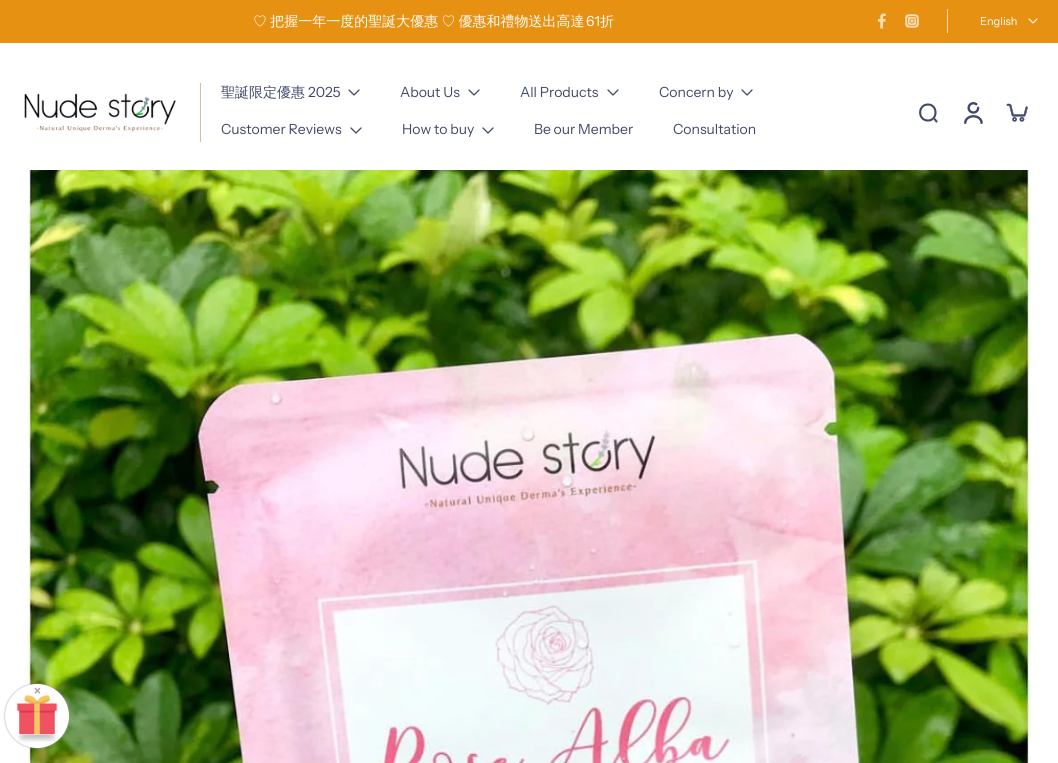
#include <cairo.h>
#include <math.h>
#include <stddef.h>


static void spaced_text(cairo_t *cr, double x, double y, const char *s, double letter, double word) {
    cairo_move_to(cr, x, y);
    while (*s) {
        char ch[5] = {0};
        int n = 0;
        do ch[n++] = *s++; while ((*s & 0xC0) == 0x80);
        cairo_show_text(cr, ch);
        cairo_rel_move_to(cr, letter + word * (*ch == ' '), 0);
    }
}

static void round_rect(cairo_t *cr, double x, double y, double w, double h, double r) {
    cairo_new_sub_path(cr);
    cairo_arc(cr, x + w - r, y + h - r, r, 0, M_PI / 2);
    cairo_arc(cr, x + r, y + h - r, r, M_PI / 2, M_PI);
    cairo_arc(cr, x + r, y + r, r, M_PI, 1.5 * M_PI);
    cairo_arc(cr, x + w - r, y + r, r, 1.5 * M_PI, 2 * M_PI);
    cairo_close_path(cr);
}

static void shadow(cairo_t *cr, double x, double y, double w, double h, double r, double blur, double alpha) {
    cairo_push_group_with_content(cr, CAIRO_CONTENT_ALPHA);
    cairo_set_operator(cr, CAIRO_OPERATOR_SOURCE);
    for (int i = 15; i >= -15 && fmin(w, h) + blur * i / 3 > 0; i -= 2) {
        double e = blur * i / 6;
        cairo_set_source_rgba(cr, 0, 0, 0, alpha * erfc((i - 1) / 8.5) / 2);
        round_rect(cr, x - e, y - e, w + 2 * e, h + 2 * e, fmax(0, fmin(r + e + blur * .6, fmin(w, h) / 2 + e)));
        cairo_fill(cr);
    }
    cairo_pattern_t *soft = cairo_pop_group(cr);
    cairo_mask(cr, soft);
    cairo_pattern_destroy(soft);
}

static void picture(cairo_t *cr, const char *path, double x, double y, double w, double h) {
    cairo_surface_t *image = cairo_image_surface_create_from_png(path);
    cairo_save(cr);
    cairo_set_source_surface(cr, image, x, y);
    cairo_rectangle(cr, x, y, w, h);
    cairo_fill(cr);
    cairo_restore(cr);
    cairo_surface_destroy(image);
}

int main(void) {
    cairo_surface_t *surface = cairo_image_surface_create(CAIRO_FORMAT_RGB24, 1058, 763);
    cairo_t *cr = cairo_create(surface);
    cairo_font_options_t *options = cairo_font_options_create();
    cairo_font_options_set_hint_metrics(options, CAIRO_HINT_METRICS_OFF);
    cairo_font_options_set_hint_style(options, CAIRO_HINT_STYLE_NONE);
    cairo_set_font_options(cr, options);
    cairo_set_miter_limit(cr, 4);
    cairo_set_source_rgb(cr, 1, 1, 1);
    cairo_paint(cr);
    cairo_set_source_rgb(cr, 0.906, 0.569, 0.071);
    cairo_rectangle(cr, 0, 0, 1058, 43);
    cairo_fill(cr);
    cairo_select_font_face(cr, "WenQuanYi Zen Hei Medium", CAIRO_FONT_SLANT_NORMAL, CAIRO_FONT_WEIGHT_NORMAL);
    cairo_set_font_size(cr, 14);
    cairo_set_source_rgb(cr, 1, 1, 1);
    spaced_text(cr, 253, 26, "♡ 把握一年一度的聖誕大優惠 ♡ 優惠和禮物送出高達", 0, -1);
    cairo_select_font_face(cr, "Instrument Sans", CAIRO_FONT_SLANT_NORMAL, CAIRO_FONT_WEIGHT_NORMAL);
    cairo_move_to(cr, 586, 26);
    cairo_show_text(cr, "61");
    cairo_select_font_face(cr, "WenQuanYi Zen Hei Medium", CAIRO_FONT_SLANT_NORMAL, CAIRO_FONT_WEIGHT_NORMAL);
    cairo_move_to(cr, 600, 26);
    cairo_show_text(cr, "折");
    cairo_set_source_rgb(cr, 0.973, 0.871, 0.722);
    cairo_rectangle(cr, 947, 9, 1, 24);
    cairo_fill(cr);
    picture(cr, "img1.png", 877, 13, 9, 16);
    picture(cr, "img2.png", 905, 14, 14, 14);
    cairo_select_font_face(cr, "Instrument Sans", CAIRO_FONT_SLANT_NORMAL, CAIRO_FONT_WEIGHT_NORMAL);
    cairo_set_font_size(cr, 11);
    cairo_set_source_rgb(cr, 1, 1, 1);
    cairo_move_to(cr, 980, 25);
    cairo_show_text(cr, "English");
    cairo_new_path(cr);
    cairo_move_to(cr, 1029, 19);
    cairo_line_to(cr, 1033, 23);
    cairo_line_to(cr, 1037, 19);
    cairo_set_line_width(cr, 1.1);
    cairo_set_line_cap(cr, CAIRO_LINE_CAP_ROUND);
    cairo_set_line_join(cr, CAIRO_LINE_JOIN_ROUND);
    cairo_stroke(cr);
    cairo_set_source_rgb(cr, 0.835, 0.741, 0.655);
    cairo_rectangle(cr, 200, 83, 1, 59);
    cairo_fill(cr);
    picture(cr, "img3.png", 24, 93, 152, 39);
    cairo_select_font_face(cr, "WenQuanYi Zen Hei Medium", CAIRO_FONT_SLANT_NORMAL, CAIRO_FONT_WEIGHT_NORMAL);
    cairo_set_font_size(cr, 14);
    cairo_set_source_rgb(cr, 0.251, 0.286, 0.412);
    cairo_move_to(cr, 221, 97);
    cairo_show_text(cr, "聖誕限定優惠");
    cairo_select_font_face(cr, "Instrument Sans", CAIRO_FONT_SLANT_NORMAL, CAIRO_FONT_WEIGHT_NORMAL);
    cairo_move_to(cr, 308, 97);
    cairo_show_text(cr, "2025");
    cairo_new_path(cr);
    cairo_move_to(cr, 349, 90);
    cairo_line_to(cr, 354, 95);
    cairo_line_to(cr, 359, 90);
    cairo_set_line_width(cr, 1.3);
    cairo_stroke(cr);
    cairo_move_to(cr, 400, 97);
    cairo_show_text(cr, "About Us");
    cairo_new_path(cr);
    cairo_move_to(cr, 469, 90);
    cairo_line_to(cr, 474, 95);
    cairo_line_to(cr, 479, 90);
    cairo_stroke(cr);
    cairo_move_to(cr, 520, 97);
    cairo_show_text(cr, "All Products");
    cairo_new_path(cr);
    cairo_move_to(cr, 608, 90);
    cairo_line_to(cr, 613, 95);
    cairo_line_to(cr, 618, 90);
    cairo_stroke(cr);
    cairo_move_to(cr, 659, 97);
    cairo_show_text(cr, "Concern by");
    cairo_new_path(cr);
    cairo_move_to(cr, 742, 90);
    cairo_line_to(cr, 747, 95);
    cairo_line_to(cr, 752, 90);
    cairo_stroke(cr);
    cairo_move_to(cr, 221, 134);
    cairo_show_text(cr, "Customer Reviews");
    cairo_new_path(cr);
    cairo_move_to(cr, 351, 128);
    cairo_line_to(cr, 356, 133);
    cairo_line_to(cr, 361, 128);
    cairo_stroke(cr);
    cairo_move_to(cr, 402, 134);
    cairo_show_text(cr, "How to buy");
    cairo_new_path(cr);
    cairo_move_to(cr, 483, 128);
    cairo_line_to(cr, 488, 133);
    cairo_line_to(cr, 493, 128);
    cairo_stroke(cr);
    cairo_move_to(cr, 534, 134);
    cairo_show_text(cr, "Be our Member");
    cairo_move_to(cr, 673, 134);
    cairo_show_text(cr, "Consultation");
    cairo_new_path(cr);
    cairo_move_to(cr, 928, 120.5);
    cairo_curve_to(cr, 938, 120.5, 938, 104.5, 928, 104.5);
    cairo_curve_to(cr, 917.5, 104.5, 917.5, 120.5, 928, 120.5);
    cairo_close_path(cr);
    cairo_move_to(cr, 936.5, 121.5);
    cairo_line_to(cr, 935, 119.5);
    cairo_set_line_width(cr, 2.1);
    cairo_stroke(cr);
    picture(cr, "img4.png", 964, 102, 19, 22);
    picture(cr, "img5.png", 1006, 103, 22, 19);
    picture(cr, "img6.png", 29, 170, 1000, 593);
    cairo_set_source_rgb(cr, 0.616, 0.616, 0.616);
    shadow(cr, 5, 684, 64, 64, 32, 1, 1);
    cairo_set_source_rgb(cr, 1, 1, 1);
    cairo_arc(cr, 37, 716, 32, 0, 2 * M_PI);
    cairo_fill(cr);
    picture(cr, "img7.png", 16, 695, 42, 47);
    cairo_select_font_face(cr, "Roboto", CAIRO_FONT_SLANT_NORMAL, CAIRO_FONT_WEIGHT_BOLD);
    cairo_set_font_size(cr, 13);
    cairo_set_source_rgb(cr, 0.659, 0.659, 0.659);
    cairo_move_to(cr, 34, 695);
    cairo_show_text(cr, "×");
    cairo_surface_write_to_png(surface, "page.png");
    cairo_font_options_destroy(options);
    cairo_destroy(cr);
    cairo_surface_destroy(surface);
    return 0;
}
